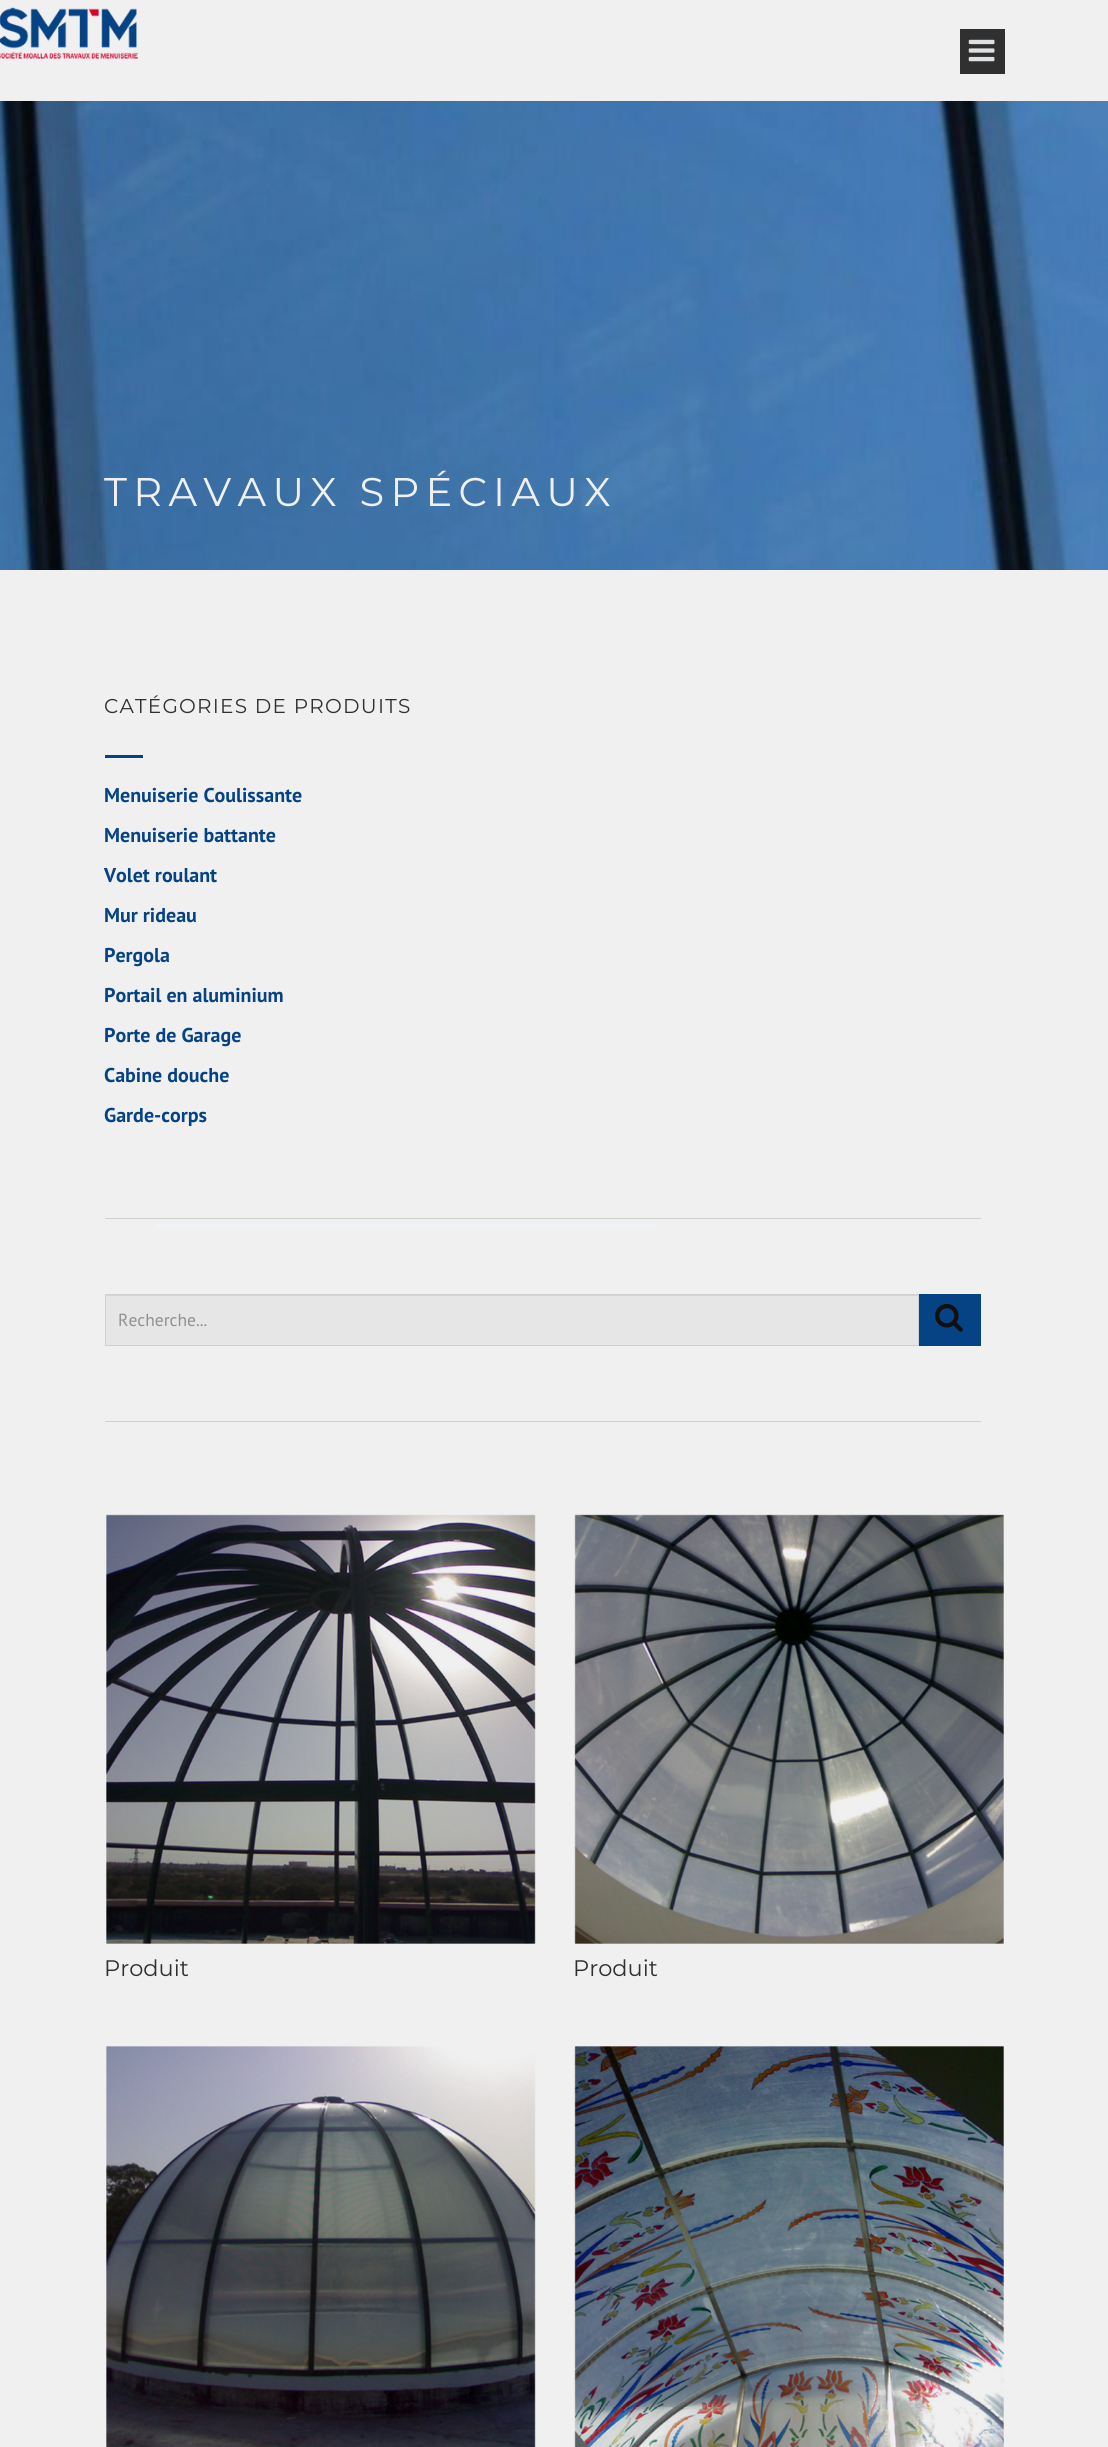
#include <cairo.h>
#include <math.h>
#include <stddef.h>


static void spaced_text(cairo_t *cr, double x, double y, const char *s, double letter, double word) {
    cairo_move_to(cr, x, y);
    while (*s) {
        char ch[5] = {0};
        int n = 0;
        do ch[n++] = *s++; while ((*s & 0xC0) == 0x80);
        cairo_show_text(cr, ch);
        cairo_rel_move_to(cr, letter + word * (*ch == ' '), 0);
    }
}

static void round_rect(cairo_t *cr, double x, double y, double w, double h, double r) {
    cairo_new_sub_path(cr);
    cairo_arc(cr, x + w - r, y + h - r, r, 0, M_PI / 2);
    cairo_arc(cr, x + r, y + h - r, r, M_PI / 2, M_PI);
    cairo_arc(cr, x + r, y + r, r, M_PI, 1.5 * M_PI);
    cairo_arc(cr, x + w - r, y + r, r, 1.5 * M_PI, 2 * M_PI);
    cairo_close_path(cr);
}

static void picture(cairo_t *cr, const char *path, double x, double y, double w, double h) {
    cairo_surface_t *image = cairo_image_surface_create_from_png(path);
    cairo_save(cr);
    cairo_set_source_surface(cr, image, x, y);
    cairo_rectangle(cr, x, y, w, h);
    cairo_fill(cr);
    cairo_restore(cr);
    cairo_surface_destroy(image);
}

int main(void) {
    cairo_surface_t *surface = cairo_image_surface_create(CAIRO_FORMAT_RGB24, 1108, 2447);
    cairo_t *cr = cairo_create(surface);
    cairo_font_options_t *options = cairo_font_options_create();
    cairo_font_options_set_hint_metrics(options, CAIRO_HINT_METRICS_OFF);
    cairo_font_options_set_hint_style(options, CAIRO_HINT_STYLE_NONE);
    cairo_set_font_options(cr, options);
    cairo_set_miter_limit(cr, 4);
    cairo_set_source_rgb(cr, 0.941, 0.941, 0.941);
    cairo_paint(cr);
    picture(cr, "img1.png", 0, 7, 138, 52);
    cairo_set_source_rgb(cr, 0.188, 0.188, 0.188);
    cairo_rectangle(cr, 960, 29, 45, 45);
    cairo_fill(cr);
    picture(cr, "img2.png", 968, 39, 27, 23);
    picture(cr, "img3.png", 0, 101, 1108, 469);
    cairo_select_font_face(cr, "Montserrat", CAIRO_FONT_SLANT_NORMAL, CAIRO_FONT_WEIGHT_NORMAL);
    cairo_set_font_size(cr, 40);
    cairo_set_source_rgb(cr, 0.941, 0.941, 0.941);
    spaced_text(cr, 104, 506, "TRAVAUX SPÉCIAUX", 6.25, 0);
    cairo_set_source_rgb(cr, 0.816, 0.816, 0.816);
    cairo_rectangle(cr, 105, 1218, 876, 1);
    cairo_fill(cr);
    cairo_set_font_size(cr, 20);
    cairo_set_source_rgb(cr, 0.188, 0.188, 0.188);
    spaced_text(cr, 104, 713, "CATÉGORIES DE PRODUITS", 1.25, 0);
    cairo_set_source_rgb(cr, 0.024, 0.263, 0.522);
    cairo_rectangle(cr, 105, 755, 38, 3);
    cairo_fill(cr);
    cairo_select_font_face(cr, "PT Sans", CAIRO_FONT_SLANT_NORMAL, CAIRO_FONT_WEIGHT_BOLD);
    cairo_move_to(cr, 104, 802);
    cairo_show_text(cr, "Menuiserie Coulissante");
    cairo_move_to(cr, 104, 842);
    cairo_show_text(cr, "Menuiserie battante");
    cairo_move_to(cr, 104, 882);
    cairo_show_text(cr, "Volet roulant");
    cairo_move_to(cr, 104, 922);
    cairo_show_text(cr, "Mur rideau");
    cairo_move_to(cr, 104, 962);
    cairo_show_text(cr, "Pergola");
    cairo_move_to(cr, 104, 1002);
    cairo_show_text(cr, "Portail en aluminium");
    cairo_move_to(cr, 104, 1042);
    cairo_show_text(cr, "Porte de Garage");
    cairo_move_to(cr, 104, 1082);
    cairo_show_text(cr, "Cabine douche");
    cairo_move_to(cr, 104, 1122);
    cairo_show_text(cr, "Garde-corps");
    cairo_set_source_rgb(cr, 0.816, 0.816, 0.816);
    cairo_rectangle(cr, 105, 1421, 876, 1);
    cairo_fill(cr);
    cairo_set_source_rgb(cr, 0.902, 0.902, 0.902);
    cairo_rectangle(cr, 106, 1296, 812, 49);
    cairo_fill(cr);
    cairo_set_source_rgb(cr, 0.835, 0.835, 0.835);
    cairo_rectangle(cr, 106, 1295, 812, 1);
    cairo_fill(cr);
    cairo_rectangle(cr, 105.5, 1294.5, 813, 51);
    cairo_set_source_rgb(cr, 0.816, 0.816, 0.816);
    cairo_set_line_width(cr, 1);
    cairo_stroke(cr);
    cairo_select_font_face(cr, "PT Sans", CAIRO_FONT_SLANT_NORMAL, CAIRO_FONT_WEIGHT_NORMAL);
    cairo_set_font_size(cr, 17.5);
    cairo_set_source_rgb(cr, 0.565, 0.565, 0.565);
    cairo_move_to(cr, 118, 1326);
    cairo_show_text(cr, "Recherche...");
    cairo_set_source_rgb(cr, 0.024, 0.263, 0.522);
    cairo_rectangle(cr, 919, 1294, 62, 52);
    cairo_fill(cr);
    picture(cr, "img4.png", 935, 1303, 28, 29);
    picture(cr, "img5.png", 106, 1514, 430, 430);
    cairo_select_font_face(cr, "Montserrat", CAIRO_FONT_SLANT_NORMAL, CAIRO_FONT_WEIGHT_NORMAL);
    cairo_set_font_size(cr, 22.5);
    cairo_set_source_rgb(cr, 0.188, 0.188, 0.188);
    cairo_move_to(cr, 104, 1976);
    cairo_show_text(cr, "Produit");
    picture(cr, "img6.png", 574, 1514, 430, 430);
    cairo_move_to(cr, 573, 1976);
    cairo_show_text(cr, "Produit");
    picture(cr, "img7.png", 106, 2046, 430, 401);
    picture(cr, "img8.png", 574, 2046, 430, 401);
    cairo_set_source_rgb(cr, 0.937, 0.953, 0.973);
    round_rect(cr, 155, 1224, 500, 3, 1.5);
    cairo_fill(cr);
    cairo_surface_write_to_png(surface, "page.png");
    cairo_font_options_destroy(options);
    cairo_destroy(cr);
    cairo_surface_destroy(surface);
    return 0;
}
